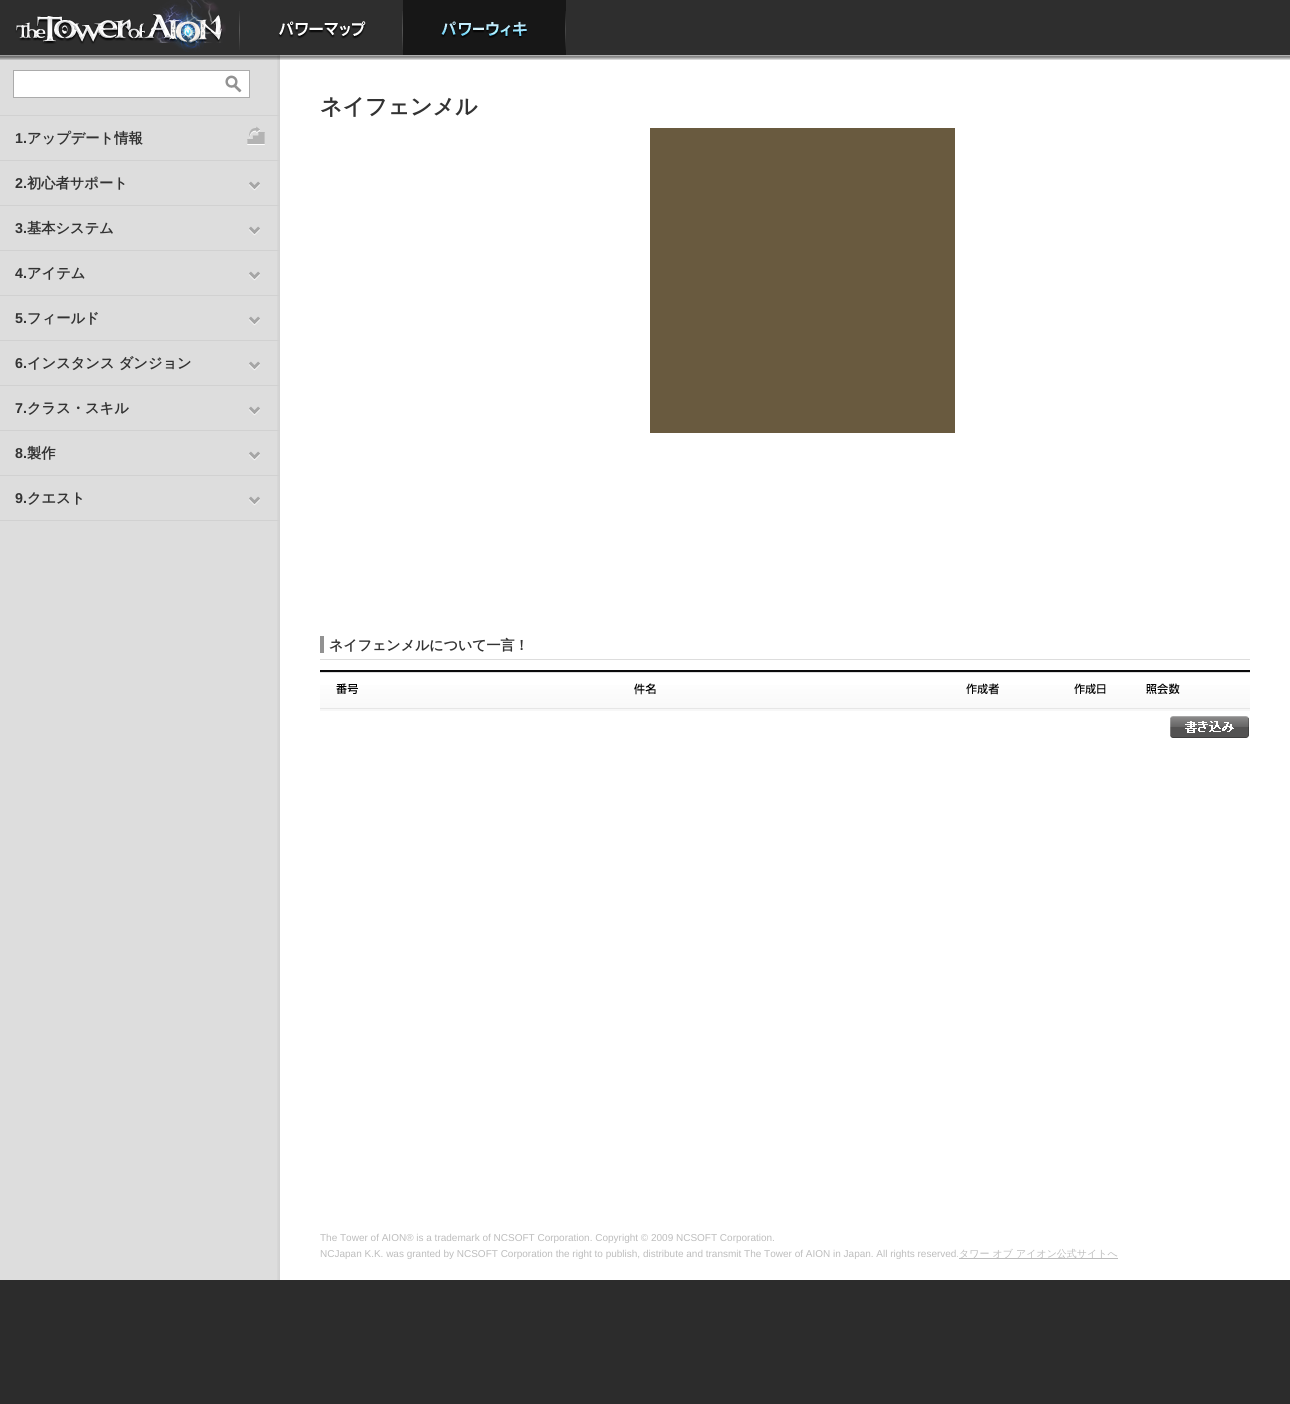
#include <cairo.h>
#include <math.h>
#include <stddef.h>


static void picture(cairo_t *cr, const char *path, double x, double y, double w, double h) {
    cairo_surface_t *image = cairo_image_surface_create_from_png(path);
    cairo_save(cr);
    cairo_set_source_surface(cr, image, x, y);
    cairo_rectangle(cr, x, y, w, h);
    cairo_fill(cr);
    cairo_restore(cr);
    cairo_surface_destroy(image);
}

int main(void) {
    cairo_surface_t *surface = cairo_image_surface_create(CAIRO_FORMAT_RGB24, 1290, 1404);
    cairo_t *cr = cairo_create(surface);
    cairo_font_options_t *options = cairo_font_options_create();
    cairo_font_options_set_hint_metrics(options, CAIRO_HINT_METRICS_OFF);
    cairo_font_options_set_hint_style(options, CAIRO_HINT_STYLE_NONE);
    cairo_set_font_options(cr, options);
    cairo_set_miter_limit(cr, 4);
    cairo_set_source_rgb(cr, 0.173, 0.173, 0.173);
    cairo_paint(cr);
    cairo_set_source_rgb(cr, 1, 1, 1);
    cairo_rectangle(cr, 280, 55, 1010, 1225);
    cairo_fill(cr);
    picture(cr, "img7.png", 0, 55, 280, 1225);
    picture(cr, "img1.png", 0, 0, 1290, 60);
    picture(cr, "img2.png", 239, 11, 1, 39);
    picture(cr, "img3.png", 15, 0, 211, 52);
    picture(cr, "img2.png", 402, 11, 1, 39);
    picture(cr, "img4.png", 278, 21, 125, 18);
    cairo_set_source_rgb(cr, 0.09, 0.09, 0.09);
    cairo_rectangle(cr, 403, 0, 163, 55);
    cairo_fill(cr);
    picture(cr, "img5.png", 565, 11, 1, 39);
    picture(cr, "img6.png", 441, 21, 86, 17);
    cairo_set_source_rgb(cr, 0.82, 0.82, 0.82);
    cairo_rectangle(cr, 0, 115, 280, 1);
    cairo_fill(cr);
    cairo_set_source_rgb(cr, 1, 1, 1);
    cairo_rectangle(cr, 13.5, 70.5, 236, 27);
    cairo_fill_preserve(cr);
    cairo_set_source_rgb(cr, 0.671, 0.671, 0.671);
    cairo_set_line_width(cr, 1);
    cairo_stroke(cr);
    picture(cr, "img8.png", 225, 75, 17, 18);
    cairo_set_source_rgb(cr, 0.82, 0.82, 0.82);
    cairo_rectangle(cr, 0, 160, 280, 1);
    cairo_fill(cr);
    picture(cr, "img9.png", 247, 126, 18, 19);
    cairo_select_font_face(cr, "Liberation Sans", CAIRO_FONT_SLANT_NORMAL, CAIRO_FONT_WEIGHT_BOLD);
    cairo_set_font_size(cr, 14.25);
    cairo_set_source_rgb(cr, 0.2, 0.2, 0.2);
    cairo_move_to(cr, 15, 143);
    cairo_show_text(cr, "1.");
    cairo_select_font_face(cr, "WenQuanYi Zen Hei", CAIRO_FONT_SLANT_NORMAL, CAIRO_FONT_WEIGHT_BOLD);
    cairo_move_to(cr, 27, 143);
    cairo_show_text(cr, "アップデート情報");
    cairo_set_source_rgb(cr, 0.82, 0.82, 0.82);
    cairo_rectangle(cr, 0, 205, 280, 1);
    cairo_fill(cr);
    picture(cr, "img10.png", 249, 181, 11, 10);
    cairo_select_font_face(cr, "Liberation Sans", CAIRO_FONT_SLANT_NORMAL, CAIRO_FONT_WEIGHT_BOLD);
    cairo_set_source_rgb(cr, 0.2, 0.2, 0.2);
    cairo_move_to(cr, 15, 188);
    cairo_show_text(cr, "2.");
    cairo_select_font_face(cr, "WenQuanYi Zen Hei", CAIRO_FONT_SLANT_NORMAL, CAIRO_FONT_WEIGHT_BOLD);
    cairo_move_to(cr, 27, 188);
    cairo_show_text(cr, "初心者サポート");
    cairo_set_source_rgb(cr, 0.82, 0.82, 0.82);
    cairo_rectangle(cr, 0, 250, 280, 1);
    cairo_fill(cr);
    picture(cr, "img10.png", 249, 226, 11, 10);
    cairo_select_font_face(cr, "Liberation Sans", CAIRO_FONT_SLANT_NORMAL, CAIRO_FONT_WEIGHT_BOLD);
    cairo_set_source_rgb(cr, 0.2, 0.2, 0.2);
    cairo_move_to(cr, 15, 233);
    cairo_show_text(cr, "3.");
    cairo_select_font_face(cr, "WenQuanYi Zen Hei", CAIRO_FONT_SLANT_NORMAL, CAIRO_FONT_WEIGHT_BOLD);
    cairo_move_to(cr, 27, 233);
    cairo_show_text(cr, "基本システム");
    cairo_set_source_rgb(cr, 0.82, 0.82, 0.82);
    cairo_rectangle(cr, 0, 295, 280, 1);
    cairo_fill(cr);
    picture(cr, "img10.png", 249, 271, 11, 10);
    cairo_select_font_face(cr, "Liberation Sans", CAIRO_FONT_SLANT_NORMAL, CAIRO_FONT_WEIGHT_BOLD);
    cairo_set_source_rgb(cr, 0.2, 0.2, 0.2);
    cairo_move_to(cr, 15, 278);
    cairo_show_text(cr, "4.");
    cairo_select_font_face(cr, "WenQuanYi Zen Hei", CAIRO_FONT_SLANT_NORMAL, CAIRO_FONT_WEIGHT_BOLD);
    cairo_move_to(cr, 27, 278);
    cairo_show_text(cr, "アイテム");
    cairo_set_source_rgb(cr, 0.82, 0.82, 0.82);
    cairo_rectangle(cr, 0, 340, 280, 1);
    cairo_fill(cr);
    picture(cr, "img10.png", 249, 316, 11, 10);
    cairo_select_font_face(cr, "Liberation Sans", CAIRO_FONT_SLANT_NORMAL, CAIRO_FONT_WEIGHT_BOLD);
    cairo_set_source_rgb(cr, 0.2, 0.2, 0.2);
    cairo_move_to(cr, 15, 323);
    cairo_show_text(cr, "5.");
    cairo_select_font_face(cr, "WenQuanYi Zen Hei", CAIRO_FONT_SLANT_NORMAL, CAIRO_FONT_WEIGHT_BOLD);
    cairo_move_to(cr, 27, 323);
    cairo_show_text(cr, "フィールド");
    cairo_set_source_rgb(cr, 0.82, 0.82, 0.82);
    cairo_rectangle(cr, 0, 385, 280, 1);
    cairo_fill(cr);
    picture(cr, "img10.png", 249, 361, 11, 10);
    cairo_select_font_face(cr, "Liberation Sans", CAIRO_FONT_SLANT_NORMAL, CAIRO_FONT_WEIGHT_BOLD);
    cairo_set_source_rgb(cr, 0.2, 0.2, 0.2);
    cairo_move_to(cr, 15, 368);
    cairo_show_text(cr, "6.");
    cairo_select_font_face(cr, "WenQuanYi Zen Hei", CAIRO_FONT_SLANT_NORMAL, CAIRO_FONT_WEIGHT_BOLD);
    cairo_move_to(cr, 27, 368);
    cairo_show_text(cr, "インスタンス ダンジョン");
    cairo_set_source_rgb(cr, 0.82, 0.82, 0.82);
    cairo_rectangle(cr, 0, 430, 280, 1);
    cairo_fill(cr);
    picture(cr, "img10.png", 249, 406, 11, 10);
    cairo_select_font_face(cr, "Liberation Sans", CAIRO_FONT_SLANT_NORMAL, CAIRO_FONT_WEIGHT_BOLD);
    cairo_set_source_rgb(cr, 0.2, 0.2, 0.2);
    cairo_move_to(cr, 15, 413);
    cairo_show_text(cr, "7.");
    cairo_select_font_face(cr, "WenQuanYi Zen Hei", CAIRO_FONT_SLANT_NORMAL, CAIRO_FONT_WEIGHT_BOLD);
    cairo_move_to(cr, 27, 413);
    cairo_show_text(cr, "クラス・スキル");
    cairo_set_source_rgb(cr, 0.82, 0.82, 0.82);
    cairo_rectangle(cr, 0, 475, 280, 1);
    cairo_fill(cr);
    picture(cr, "img10.png", 249, 451, 11, 10);
    cairo_select_font_face(cr, "Liberation Sans", CAIRO_FONT_SLANT_NORMAL, CAIRO_FONT_WEIGHT_BOLD);
    cairo_set_source_rgb(cr, 0.2, 0.2, 0.2);
    cairo_move_to(cr, 15, 458);
    cairo_show_text(cr, "8.");
    cairo_select_font_face(cr, "WenQuanYi Zen Hei", CAIRO_FONT_SLANT_NORMAL, CAIRO_FONT_WEIGHT_BOLD);
    cairo_move_to(cr, 27, 458);
    cairo_show_text(cr, "製作");
    cairo_set_source_rgb(cr, 0.82, 0.82, 0.82);
    cairo_rectangle(cr, 0, 520, 280, 1);
    cairo_fill(cr);
    picture(cr, "img10.png", 249, 496, 11, 10);
    cairo_select_font_face(cr, "Liberation Sans", CAIRO_FONT_SLANT_NORMAL, CAIRO_FONT_WEIGHT_BOLD);
    cairo_set_source_rgb(cr, 0.2, 0.2, 0.2);
    cairo_move_to(cr, 15, 503);
    cairo_show_text(cr, "9.");
    cairo_select_font_face(cr, "WenQuanYi Zen Hei", CAIRO_FONT_SLANT_NORMAL, CAIRO_FONT_WEIGHT_BOLD);
    cairo_move_to(cr, 27, 503);
    cairo_show_text(cr, "クエスト");
    cairo_set_font_size(cr, 22);
    cairo_move_to(cr, 320, 114);
    cairo_show_text(cr, "ネイフェンメル");
    cairo_set_source_rgb(cr, 0.412, 0.353, 0.247);
    cairo_rectangle(cr, 650, 128, 305, 305);
    cairo_fill(cr);
    cairo_set_source_rgb(cr, 0.867, 0.867, 0.867);
    cairo_rectangle(cr, 320, 659, 930, 1);
    cairo_fill(cr);
    cairo_set_source_rgb(cr, 0.573, 0.573, 0.573);
    cairo_rectangle(cr, 320, 636, 4, 17);
    cairo_fill(cr);
    cairo_set_font_size(cr, 14);
    cairo_set_source_rgb(cr, 0.2, 0.2, 0.2);
    cairo_move_to(cr, 329, 650);
    cairo_show_text(cr, "ネイフェンメルについて一言！");
    picture(cr, "img11.png", 320, 670, 53, 41);
    picture(cr, "img12.png", 336, 683, 22, 11);
    picture(cr, "img13.png", 373, 670, 544, 41);
    picture(cr, "img14.png", 634, 683, 22, 12);
    picture(cr, "img15.png", 917, 670, 133, 41);
    picture(cr, "img16.png", 966, 683, 33, 12);
    picture(cr, "img17.png", 1050, 670, 80, 41);
    picture(cr, "img18.png", 1074, 683, 32, 11);
    picture(cr, "img19.png", 1130, 670, 67, 41);
    picture(cr, "img20.png", 1146, 683, 34, 12);
    picture(cr, "img11.png", 1197, 670, 53, 41);
    picture(cr, "img21.png", 1170, 716, 79, 22);
    cairo_select_font_face(cr, "Liberation Sans", CAIRO_FONT_SLANT_NORMAL, CAIRO_FONT_WEIGHT_NORMAL);
    cairo_set_font_size(cr, 10);
    cairo_set_source_rgb(cr, 0.741, 0.741, 0.741);
    cairo_move_to(cr, 320, 1241);
    cairo_show_text(cr, "The Tower of AION® is a trademark of NCSOFT Corporation. Copyright © 2009 NCSOFT Corporation.");
    cairo_move_to(cr, 320, 1257);
    cairo_show_text(cr, "NCJapan K.K. was granted by NCSOFT Corporation the right to publish, distribute and transmit The Tower of AION in Japan. All rights reserved.");
    cairo_rectangle(cr, 959, 1258, 159, 1);
    cairo_fill(cr);
    cairo_select_font_face(cr, "WenQuanYi Zen Hei Medium", CAIRO_FONT_SLANT_NORMAL, CAIRO_FONT_WEIGHT_NORMAL);
    cairo_move_to(cr, 959, 1257);
    cairo_show_text(cr, "タワー オブ アイオン公式サイトへ");
    cairo_surface_write_to_png(surface, "page.png");
    cairo_font_options_destroy(options);
    cairo_destroy(cr);
    cairo_surface_destroy(surface);
    return 0;
}
